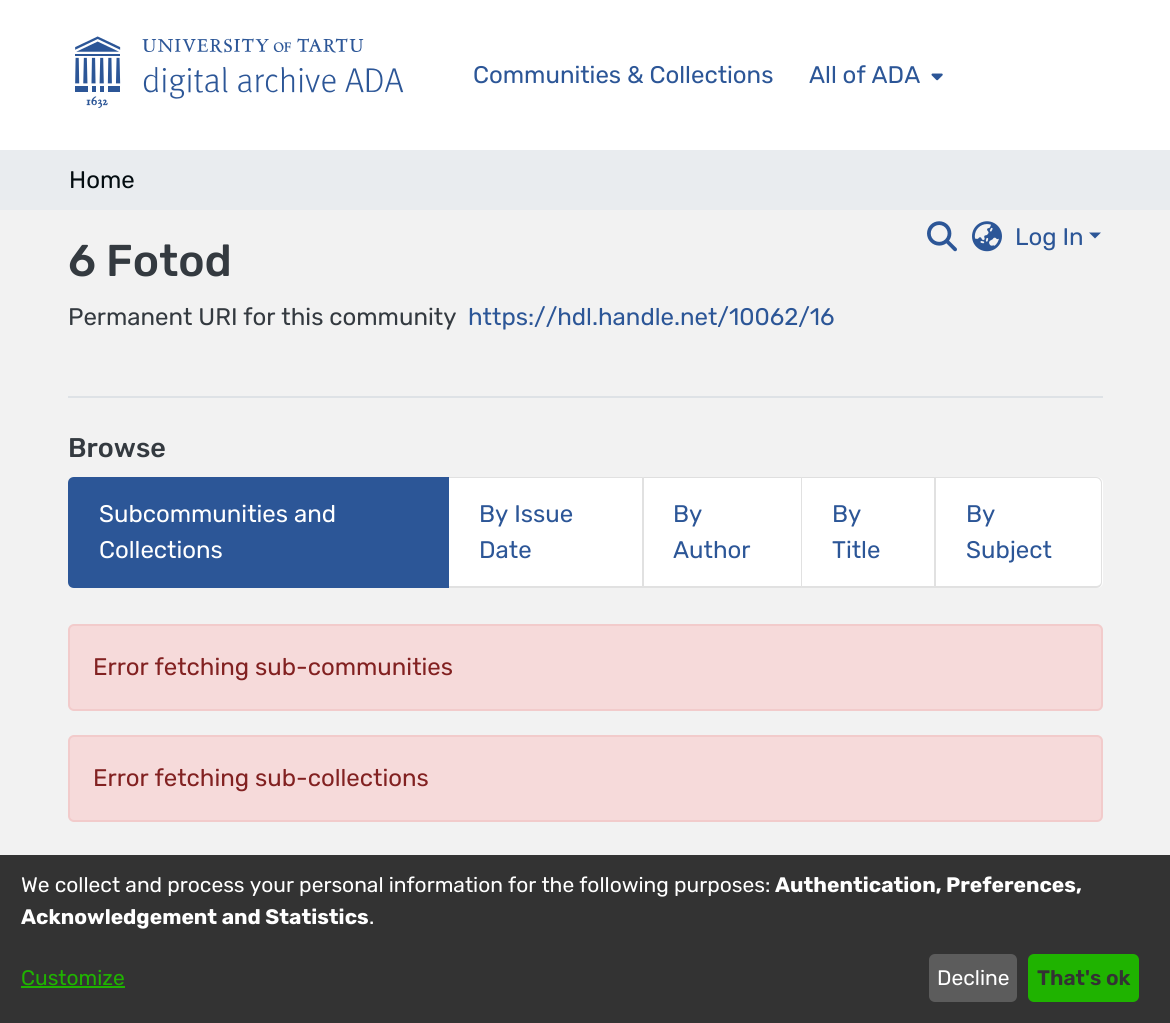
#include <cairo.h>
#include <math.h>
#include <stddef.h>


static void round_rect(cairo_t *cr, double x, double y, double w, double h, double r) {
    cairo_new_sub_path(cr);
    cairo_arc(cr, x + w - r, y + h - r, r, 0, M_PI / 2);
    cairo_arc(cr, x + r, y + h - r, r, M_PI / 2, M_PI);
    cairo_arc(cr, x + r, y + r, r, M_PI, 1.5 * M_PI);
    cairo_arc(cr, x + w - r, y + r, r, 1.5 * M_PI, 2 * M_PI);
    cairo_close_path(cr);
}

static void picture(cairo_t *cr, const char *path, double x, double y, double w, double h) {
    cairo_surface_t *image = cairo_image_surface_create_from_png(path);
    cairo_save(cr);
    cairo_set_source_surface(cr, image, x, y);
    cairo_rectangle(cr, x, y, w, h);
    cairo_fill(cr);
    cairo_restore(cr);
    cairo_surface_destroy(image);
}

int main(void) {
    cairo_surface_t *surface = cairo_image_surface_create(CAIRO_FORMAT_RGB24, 1170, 1023);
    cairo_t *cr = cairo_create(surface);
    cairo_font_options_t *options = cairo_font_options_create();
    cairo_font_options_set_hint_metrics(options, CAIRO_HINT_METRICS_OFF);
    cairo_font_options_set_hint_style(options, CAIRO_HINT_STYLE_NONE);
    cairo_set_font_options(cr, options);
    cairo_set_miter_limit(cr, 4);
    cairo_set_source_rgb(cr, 0.949, 0.949, 0.949);
    cairo_paint(cr);
    cairo_set_source_rgb(cr, 0.914, 0.925, 0.937);
    cairo_rectangle(cr, 0, 150, 1170, 60);
    cairo_fill(cr);
    cairo_select_font_face(cr, "Rubik", CAIRO_FONT_SLANT_NORMAL, CAIRO_FONT_WEIGHT_NORMAL);
    cairo_set_font_size(cr, 24);
    cairo_set_source_rgb(cr, 0.016, 0.051, 0.067);
    cairo_move_to(cr, 69, 188);
    cairo_show_text(cr, "Home");
    cairo_set_source_rgb(cr, 1, 1, 1);
    cairo_rectangle(cr, 0, 0, 1170, 150);
    cairo_fill(cr);
    picture(cr, "img1.png", 75, 36, 329, 72);
    cairo_set_source_rgb(cr, 0.173, 0.337, 0.592);
    cairo_move_to(cr, 473, 83);
    cairo_show_text(cr, "Communities & Collections");
    cairo_move_to(cr, 809, 83);
    cairo_show_text(cr, "All of ADA");
    picture(cr, "img2.png", 931, 73, 12, 8);
    picture(cr, "img3.png", 927, 221, 30, 31);
    picture(cr, "img4.png", 972, 221, 30, 31);
    cairo_move_to(cr, 1015, 245);
    cairo_show_text(cr, "Log In");
    cairo_new_path(cr);
    cairo_move_to(cr, 1089, 232.5);
    cairo_line_to(cr, 1101, 232.5);
    cairo_line_to(cr, 1095, 238.5);
    cairo_close_path(cr);
    cairo_fill(cr);
    cairo_set_source_rgb(cr, 0.871, 0.886, 0.902);
    cairo_rectangle(cr, 68, 396, 1035, 2);
    cairo_fill(cr);
    cairo_select_font_face(cr, "Rubik Medium", CAIRO_FONT_SLANT_NORMAL, CAIRO_FONT_WEIGHT_NORMAL);
    cairo_set_font_size(cr, 44.5);
    cairo_set_source_rgb(cr, 0.204, 0.227, 0.251);
    cairo_move_to(cr, 68, 276);
    cairo_show_text(cr, "6 Fotod");
    cairo_select_font_face(cr, "Rubik", CAIRO_FONT_SLANT_NORMAL, CAIRO_FONT_WEIGHT_NORMAL);
    cairo_set_font_size(cr, 24);
    cairo_move_to(cr, 68, 325);
    cairo_show_text(cr, "Permanent URI for this community");
    cairo_set_source_rgb(cr, 0.173, 0.337, 0.592);
    cairo_move_to(cr, 468, 325);
    cairo_show_text(cr, "https://hdl.handle.net/10062/16");
    cairo_select_font_face(cr, "Rubik Medium", CAIRO_FONT_SLANT_NORMAL, CAIRO_FONT_WEIGHT_NORMAL);
    cairo_set_font_size(cr, 27);
    cairo_set_source_rgb(cr, 0.204, 0.227, 0.251);
    cairo_move_to(cr, 68, 457);
    cairo_show_text(cr, "Browse");
    cairo_set_source_rgb(cr, 1, 1, 1);
    cairo_rectangle(cr, 449, 477, 487, 111);
    cairo_fill(cr);
    cairo_set_source_rgba(cr, 0, 0, 0, 0.12);
    cairo_new_path(cr);
    cairo_move_to(cr, 448, 477);
    cairo_line_to(cr, 644, 477);
    cairo_line_to(cr, 642, 478);
    cairo_line_to(cr, 448, 478);
    cairo_close_path(cr);
    cairo_fill(cr);
    cairo_new_path(cr);
    cairo_move_to(cr, 644, 477);
    cairo_line_to(cr, 644, 588);
    cairo_line_to(cr, 642, 586);
    cairo_line_to(cr, 642, 478);
    cairo_close_path(cr);
    cairo_fill(cr);
    cairo_new_path(cr);
    cairo_move_to(cr, 644, 588);
    cairo_line_to(cr, 448, 588);
    cairo_line_to(cr, 448, 586);
    cairo_line_to(cr, 642, 586);
    cairo_close_path(cr);
    cairo_fill(cr);
    cairo_set_source_rgb(cr, 0.173, 0.337, 0.592);
    cairo_new_path(cr);
    cairo_move_to(cr, 74, 478);
    cairo_line_to(cr, 448, 478);
    cairo_line_to(cr, 448, 587);
    cairo_line_to(cr, 74, 587);
    cairo_curve_to(cr, 71, 587, 69, 585, 69, 582);
    cairo_line_to(cr, 69, 483);
    cairo_curve_to(cr, 69, 480, 71, 478, 74, 478);
    cairo_close_path(cr);
    cairo_fill_preserve(cr);
    cairo_stroke(cr);
    cairo_select_font_face(cr, "Rubik", CAIRO_FONT_SLANT_NORMAL, CAIRO_FONT_WEIGHT_NORMAL);
    cairo_set_font_size(cr, 24);
    cairo_set_source_rgb(cr, 1, 1, 1);
    cairo_move_to(cr, 99, 522);
    cairo_show_text(cr, "Subcommunities and");
    cairo_move_to(cr, 99, 558);
    cairo_show_text(cr, "Collections");
    cairo_set_source_rgb(cr, 0.173, 0.337, 0.592);
    cairo_move_to(cr, 479, 522);
    cairo_show_text(cr, "By Issue");
    cairo_move_to(cr, 479, 558);
    cairo_show_text(cr, "Date");
    cairo_set_source_rgb(cr, 0.875, 0.875, 0.875);
    cairo_new_path(cr);
    cairo_move_to(cr, 644, 477);
    cairo_line_to(cr, 802, 477);
    cairo_line_to(cr, 801, 478);
    cairo_line_to(cr, 644, 478);
    cairo_close_path(cr);
    cairo_fill(cr);
    cairo_set_source_rgba(cr, 0, 0, 0, 0.12);
    cairo_new_path(cr);
    cairo_move_to(cr, 802, 477);
    cairo_line_to(cr, 802, 588);
    cairo_line_to(cr, 801, 586);
    cairo_line_to(cr, 801, 478);
    cairo_close_path(cr);
    cairo_fill(cr);
    cairo_new_path(cr);
    cairo_move_to(cr, 802, 588);
    cairo_line_to(cr, 644, 588);
    cairo_line_to(cr, 644, 586);
    cairo_line_to(cr, 801, 586);
    cairo_close_path(cr);
    cairo_fill(cr);
    cairo_set_source_rgb(cr, 0.173, 0.337, 0.592);
    cairo_move_to(cr, 673, 522);
    cairo_show_text(cr, "By");
    cairo_move_to(cr, 673, 558);
    cairo_show_text(cr, "Author");
    cairo_set_source_rgb(cr, 0.875, 0.875, 0.875);
    cairo_new_path(cr);
    cairo_move_to(cr, 802, 477);
    cairo_line_to(cr, 936, 477);
    cairo_line_to(cr, 934, 478);
    cairo_line_to(cr, 802, 478);
    cairo_close_path(cr);
    cairo_fill(cr);
    cairo_set_source_rgba(cr, 0, 0, 0, 0.12);
    cairo_new_path(cr);
    cairo_move_to(cr, 936, 477);
    cairo_line_to(cr, 936, 588);
    cairo_line_to(cr, 934, 586);
    cairo_line_to(cr, 934, 478);
    cairo_close_path(cr);
    cairo_fill(cr);
    cairo_new_path(cr);
    cairo_move_to(cr, 936, 588);
    cairo_line_to(cr, 802, 588);
    cairo_line_to(cr, 802, 586);
    cairo_line_to(cr, 934, 586);
    cairo_close_path(cr);
    cairo_fill(cr);
    cairo_set_source_rgb(cr, 0.173, 0.337, 0.592);
    cairo_move_to(cr, 832, 522);
    cairo_show_text(cr, "By");
    cairo_move_to(cr, 832, 558);
    cairo_show_text(cr, "Title");
    cairo_set_source_rgb(cr, 1, 1, 1);
    cairo_new_path(cr);
    cairo_move_to(cr, 936, 477);
    cairo_line_to(cr, 1097, 477);
    cairo_curve_to(cr, 1100.5, 477, 1103, 479.5, 1103, 483);
    cairo_line_to(cr, 1103, 582);
    cairo_curve_to(cr, 1103, 585.5, 1100.5, 588, 1097, 588);
    cairo_line_to(cr, 936, 588);
    cairo_close_path(cr);
    cairo_fill(cr);
    cairo_set_source_rgba(cr, 0, 0, 0, 0.12);
    cairo_set_fill_rule(cr, CAIRO_FILL_RULE_EVEN_ODD);
    cairo_new_path(cr);
    cairo_move_to(cr, 936, 477);
    cairo_line_to(cr, 1096, 477);
    cairo_curve_to(cr, 1100, 477, 1102, 480, 1102, 483);
    cairo_line_to(cr, 1102, 582);
    cairo_curve_to(cr, 1102, 585, 1100, 588, 1096, 588);
    cairo_line_to(cr, 936, 588);
    cairo_close_path(cr);
    cairo_move_to(cr, 936, 478);
    cairo_line_to(cr, 1096, 478);
    cairo_curve_to(cr, 1099, 478, 1101, 481, 1101, 483);
    cairo_line_to(cr, 1101, 582);
    cairo_curve_to(cr, 1101, 584, 1099, 586, 1096, 586);
    cairo_line_to(cr, 936, 586);
    cairo_close_path(cr);
    cairo_fill(cr);
    cairo_set_source_rgb(cr, 0.173, 0.337, 0.592);
    cairo_move_to(cr, 966, 522);
    cairo_show_text(cr, "By");
    cairo_move_to(cr, 966, 558);
    cairo_show_text(cr, "Subject");
    cairo_set_source_rgb(cr, 0.961, 0.855, 0.855);
    round_rect(cr, 69, 625, 1033, 85, 5);
    cairo_fill_preserve(cr);
    cairo_set_source_rgb(cr, 0.949, 0.796, 0.796);
    cairo_stroke(cr);
    cairo_set_source_rgb(cr, 0.51, 0.129, 0.129);
    cairo_move_to(cr, 93, 675);
    cairo_show_text(cr, "Error fetching sub-communities");
    cairo_set_source_rgb(cr, 0.961, 0.855, 0.855);
    round_rect(cr, 69, 736, 1033, 85, 5);
    cairo_fill_preserve(cr);
    cairo_set_source_rgb(cr, 0.949, 0.796, 0.796);
    cairo_stroke(cr);
    cairo_set_source_rgb(cr, 0.51, 0.129, 0.129);
    cairo_move_to(cr, 93, 786);
    cairo_show_text(cr, "Error fetching sub-collections");
    cairo_set_source_rgb(cr, 0.2, 0.2, 0.2);
    cairo_rectangle(cr, 0, 855, 1170, 168);
    cairo_fill(cr);
    cairo_set_font_size(cr, 21);
    cairo_set_source_rgb(cr, 1, 1, 1);
    cairo_move_to(cr, 21, 892);
    cairo_show_text(cr, "We collect and process your personal information for the following purposes:");
    cairo_select_font_face(cr, "Rubik", CAIRO_FONT_SLANT_NORMAL, CAIRO_FONT_WEIGHT_BOLD);
    cairo_move_to(cr, 775, 892);
    cairo_show_text(cr, "Authentication, Preferences,");
    cairo_move_to(cr, 21, 924);
    cairo_show_text(cr, "Acknowledgement and Statistics");
    cairo_select_font_face(cr, "Rubik", CAIRO_FONT_SLANT_NORMAL, CAIRO_FONT_WEIGHT_NORMAL);
    cairo_move_to(cr, 369, 924);
    cairo_show_text(cr, ".");
    cairo_set_source_rgb(cr, 0.122, 0.702, 0);
    cairo_move_to(cr, 21, 985);
    cairo_show_text(cr, "Customize");
    cairo_rectangle(cr, 21, 986, 104, 2);
    cairo_fill(cr);
    cairo_set_source_rgb(cr, 0.361, 0.361, 0.361);
    round_rect(cr, 929, 954, 88, 48, 6);
    cairo_fill(cr);
    cairo_set_source_rgb(cr, 1, 1, 1);
    cairo_move_to(cr, 937, 985);
    cairo_show_text(cr, "Decline");
    cairo_set_source_rgb(cr, 0.122, 0.702, 0);
    round_rect(cr, 1028, 954, 111, 48, 6);
    cairo_fill(cr);
    cairo_select_font_face(cr, "Rubik SemiBold", CAIRO_FONT_SLANT_NORMAL, CAIRO_FONT_WEIGHT_NORMAL);
    cairo_set_source_rgb(cr, 0.2, 0.2, 0.2);
    cairo_move_to(cr, 1037, 985);
    cairo_show_text(cr, "That's ok");
    cairo_surface_write_to_png(surface, "page.png");
    cairo_font_options_destroy(options);
    cairo_destroy(cr);
    cairo_surface_destroy(surface);
    return 0;
}
